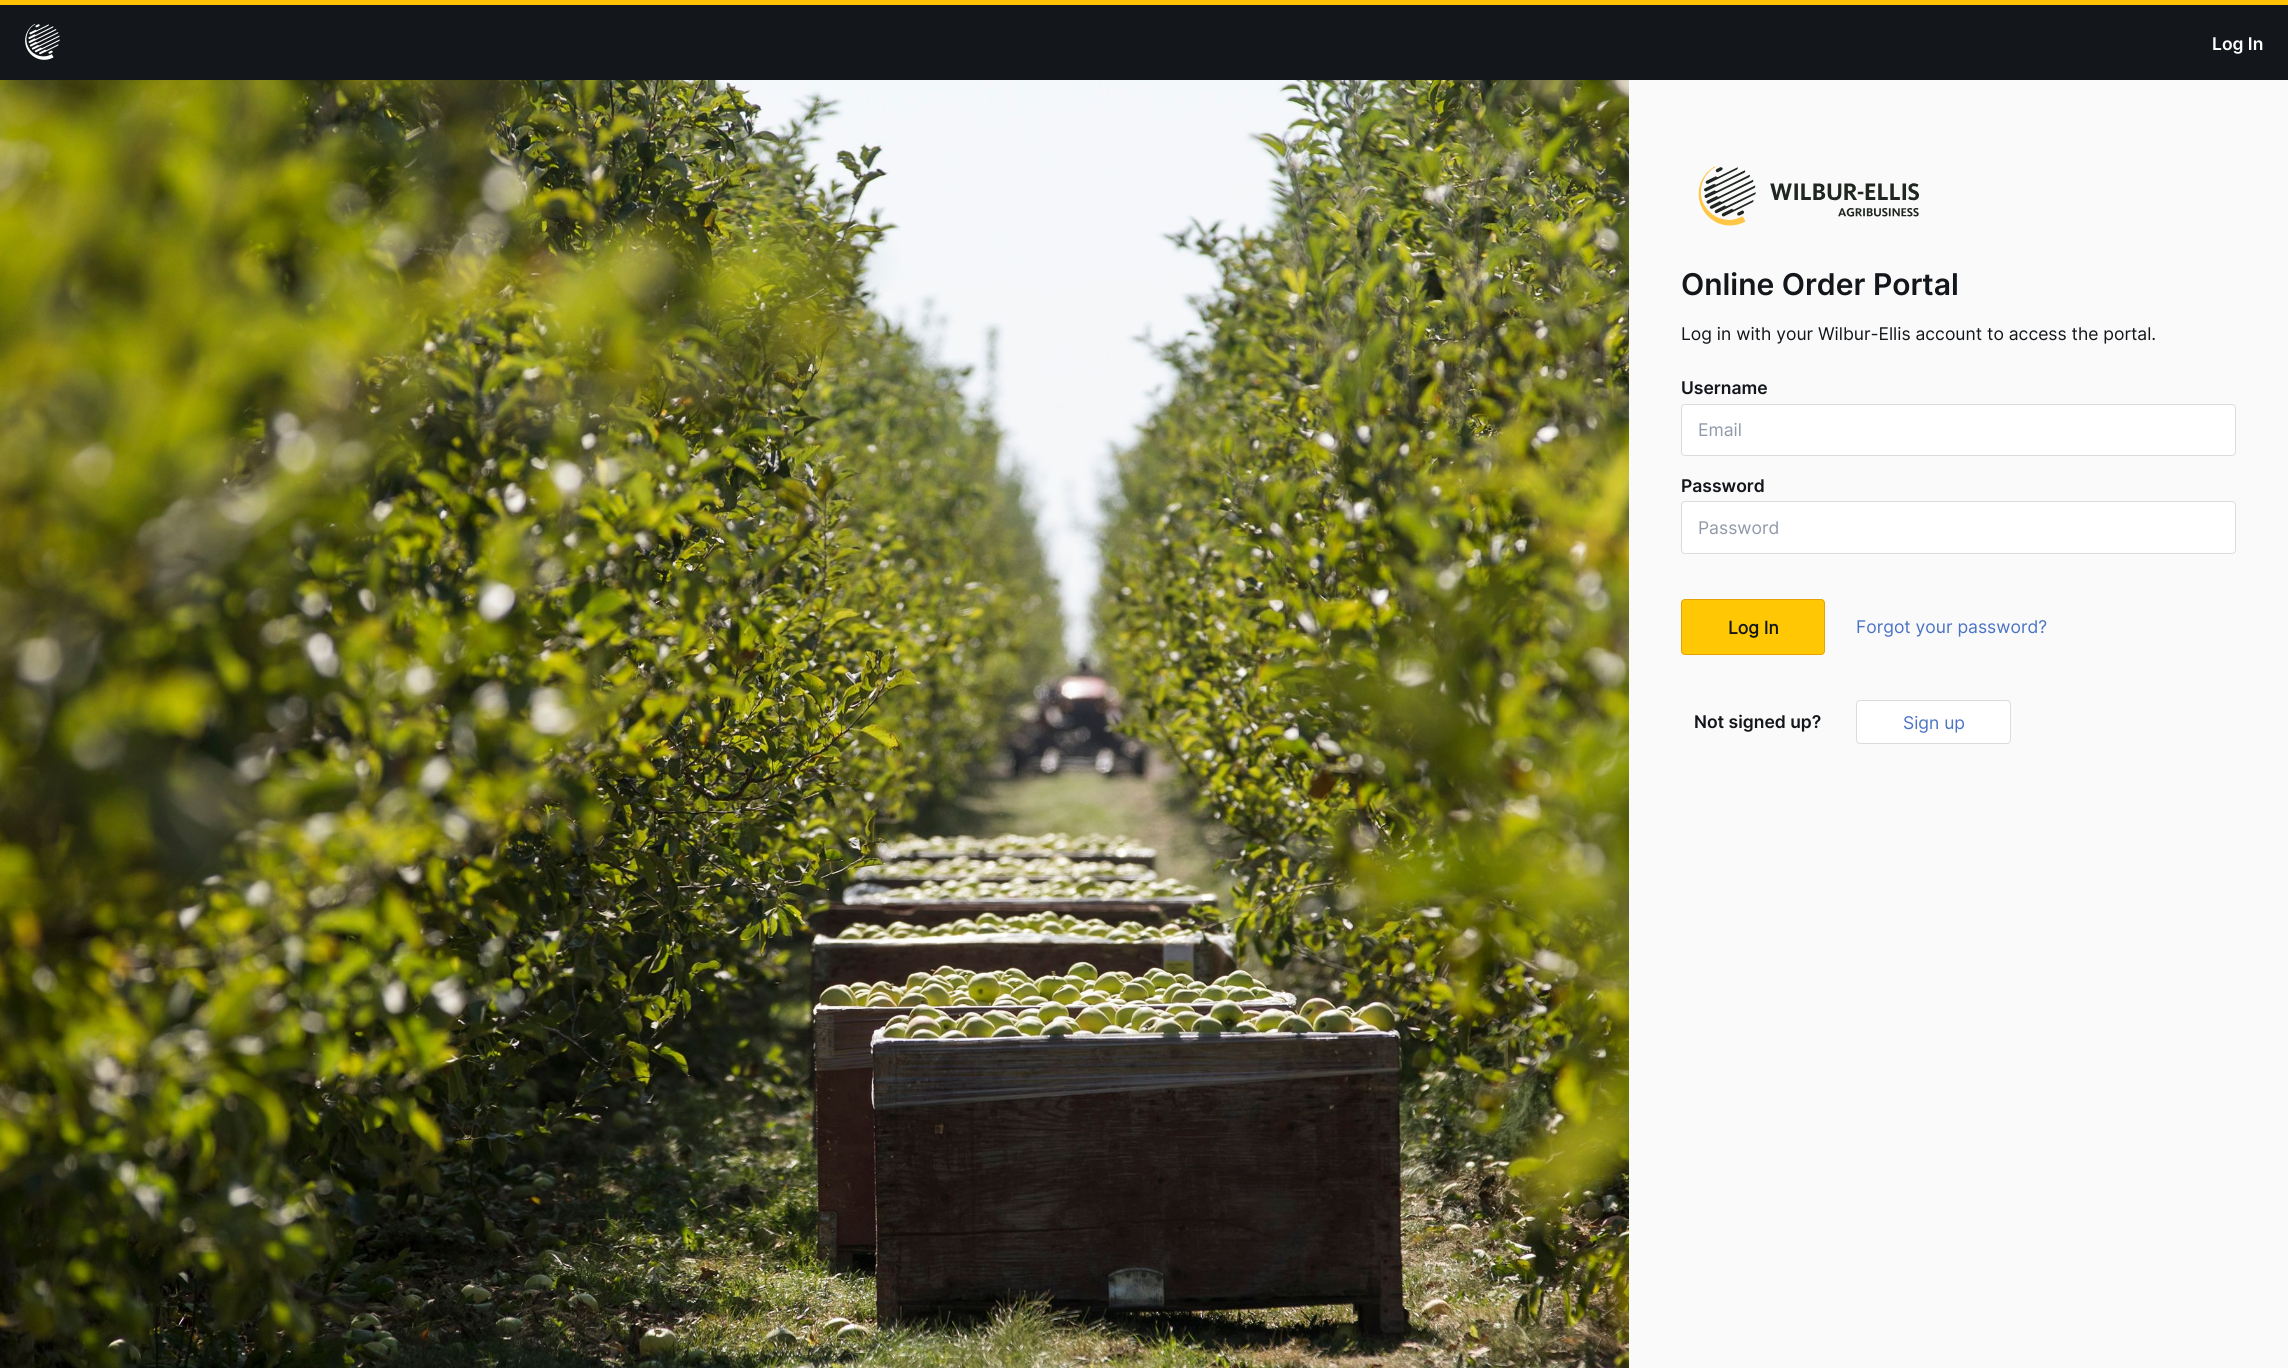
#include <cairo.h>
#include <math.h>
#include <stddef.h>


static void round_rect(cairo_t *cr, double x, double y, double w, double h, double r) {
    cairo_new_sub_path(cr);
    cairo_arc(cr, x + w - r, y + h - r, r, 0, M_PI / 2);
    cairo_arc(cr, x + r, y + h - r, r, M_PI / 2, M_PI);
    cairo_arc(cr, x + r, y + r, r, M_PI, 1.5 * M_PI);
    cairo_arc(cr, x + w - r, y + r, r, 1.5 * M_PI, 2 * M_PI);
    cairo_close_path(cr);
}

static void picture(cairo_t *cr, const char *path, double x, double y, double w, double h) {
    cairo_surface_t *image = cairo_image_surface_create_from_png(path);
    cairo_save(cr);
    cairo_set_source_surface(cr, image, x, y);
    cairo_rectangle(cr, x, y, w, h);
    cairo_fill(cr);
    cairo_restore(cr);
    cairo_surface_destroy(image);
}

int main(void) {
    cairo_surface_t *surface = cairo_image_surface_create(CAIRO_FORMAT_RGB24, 2288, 1368);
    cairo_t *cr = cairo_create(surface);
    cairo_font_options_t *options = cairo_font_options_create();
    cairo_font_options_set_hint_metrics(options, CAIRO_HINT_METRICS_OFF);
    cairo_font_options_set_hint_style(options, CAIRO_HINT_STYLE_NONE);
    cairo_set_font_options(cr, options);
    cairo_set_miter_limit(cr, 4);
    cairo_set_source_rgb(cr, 1, 1, 1);
    cairo_paint(cr);
    cairo_set_source_rgb(cr, 0.078, 0.086, 0.102);
    cairo_rectangle(cr, 0, 5, 2288, 75);
    cairo_fill(cr);
    cairo_set_source_rgb(cr, 1, 0.757, 0.027);
    cairo_rectangle(cr, 0, 0, 2288, 5);
    cairo_fill(cr);
    picture(cr, "img1.png", 25, 24, 35, 36);
    cairo_select_font_face(cr, "Inter SemiBold", CAIRO_FONT_SLANT_NORMAL, CAIRO_FONT_WEIGHT_NORMAL);
    cairo_set_font_size(cr, 17.5);
    cairo_set_source_rgb(cr, 1, 1, 1);
    cairo_move_to(cr, 2212, 50);
    cairo_show_text(cr, "Log In");
    picture(cr, "img2.png", 0, 80, 1629, 1288);
    cairo_set_source_rgb(cr, 0.98, 0.98, 0.98);
    cairo_rectangle(cr, 1629, 80, 659, 1288);
    cairo_fill(cr);
    picture(cr, "img3.png", 1698, 166, 221, 60);
    cairo_set_font_size(cr, 30);
    cairo_set_source_rgb(cr, 0.078, 0.086, 0.102);
    cairo_move_to(cr, 1681, 295);
    cairo_show_text(cr, "Online Order Portal");
    cairo_select_font_face(cr, "Inter", CAIRO_FONT_SLANT_NORMAL, CAIRO_FONT_WEIGHT_NORMAL);
    cairo_set_font_size(cr, 17.5);
    cairo_move_to(cr, 1681, 340);
    cairo_show_text(cr, "Log in with your Wilbur-Ellis account to access the portal.");
    cairo_select_font_face(cr, "Inter SemiBold", CAIRO_FONT_SLANT_NORMAL, CAIRO_FONT_WEIGHT_NORMAL);
    cairo_move_to(cr, 1681, 394);
    cairo_show_text(cr, "Username");
    cairo_set_source_rgb(cr, 1, 1, 1);
    round_rect(cr, 1681.5, 404.5, 554, 51, 3.5);
    cairo_fill_preserve(cr);
    cairo_set_source_rgb(cr, 0.863, 0.863, 0.871);
    cairo_set_line_width(cr, 1);
    cairo_stroke(cr);
    cairo_select_font_face(cr, "Inter", CAIRO_FONT_SLANT_NORMAL, CAIRO_FONT_WEIGHT_NORMAL);
    cairo_set_source_rgb(cr, 0.569, 0.6, 0.663);
    cairo_move_to(cr, 1698, 436);
    cairo_show_text(cr, "Email");
    cairo_select_font_face(cr, "Inter SemiBold", CAIRO_FONT_SLANT_NORMAL, CAIRO_FONT_WEIGHT_NORMAL);
    cairo_set_source_rgb(cr, 0.078, 0.086, 0.102);
    cairo_move_to(cr, 1681, 492);
    cairo_show_text(cr, "Password");
    cairo_set_source_rgb(cr, 1, 1, 1);
    round_rect(cr, 1681.5, 501.5, 554, 52, 3.5);
    cairo_fill_preserve(cr);
    cairo_set_source_rgb(cr, 0.863, 0.863, 0.871);
    cairo_stroke(cr);
    cairo_select_font_face(cr, "Inter", CAIRO_FONT_SLANT_NORMAL, CAIRO_FONT_WEIGHT_NORMAL);
    cairo_set_source_rgb(cr, 0.569, 0.6, 0.663);
    cairo_move_to(cr, 1698, 534);
    cairo_show_text(cr, "Password");
    cairo_set_source_rgb(cr, 1, 0.78, 0.016);
    round_rect(cr, 1681.5, 599.5, 143, 55, 3.5);
    cairo_fill_preserve(cr);
    cairo_set_source_rgb(cr, 0.894, 0.635, 0.024);
    cairo_stroke(cr);
    cairo_select_font_face(cr, "Inter", CAIRO_FONT_SLANT_NORMAL, CAIRO_FONT_WEIGHT_BOLD);
    cairo_set_source_rgb(cr, 0.078, 0.086, 0.102);
    cairo_move_to(cr, 1728, 634);
    cairo_show_text(cr, "Log In");
    cairo_select_font_face(cr, "Inter", CAIRO_FONT_SLANT_NORMAL, CAIRO_FONT_WEIGHT_NORMAL);
    cairo_set_source_rgb(cr, 0.294, 0.451, 0.765);
    cairo_move_to(cr, 1856, 633);
    cairo_show_text(cr, "Forgot your password?");
    cairo_select_font_face(cr, "Inter SemiBold", CAIRO_FONT_SLANT_NORMAL, CAIRO_FONT_WEIGHT_NORMAL);
    cairo_set_source_rgb(cr, 0.078, 0.086, 0.102);
    cairo_move_to(cr, 1694, 728);
    cairo_show_text(cr, "Not signed up?");
    cairo_set_source_rgb(cr, 1, 1, 1);
    round_rect(cr, 1856.5, 700.5, 154, 43, 3.5);
    cairo_fill_preserve(cr);
    cairo_set_source_rgb(cr, 0.863, 0.863, 0.871);
    cairo_stroke(cr);
    cairo_select_font_face(cr, "Inter", CAIRO_FONT_SLANT_NORMAL, CAIRO_FONT_WEIGHT_NORMAL);
    cairo_set_source_rgb(cr, 0.294, 0.451, 0.765);
    cairo_move_to(cr, 1903, 729);
    cairo_show_text(cr, "Sign up");
    cairo_surface_write_to_png(surface, "page.png");
    cairo_font_options_destroy(options);
    cairo_destroy(cr);
    cairo_surface_destroy(surface);
    return 0;
}
